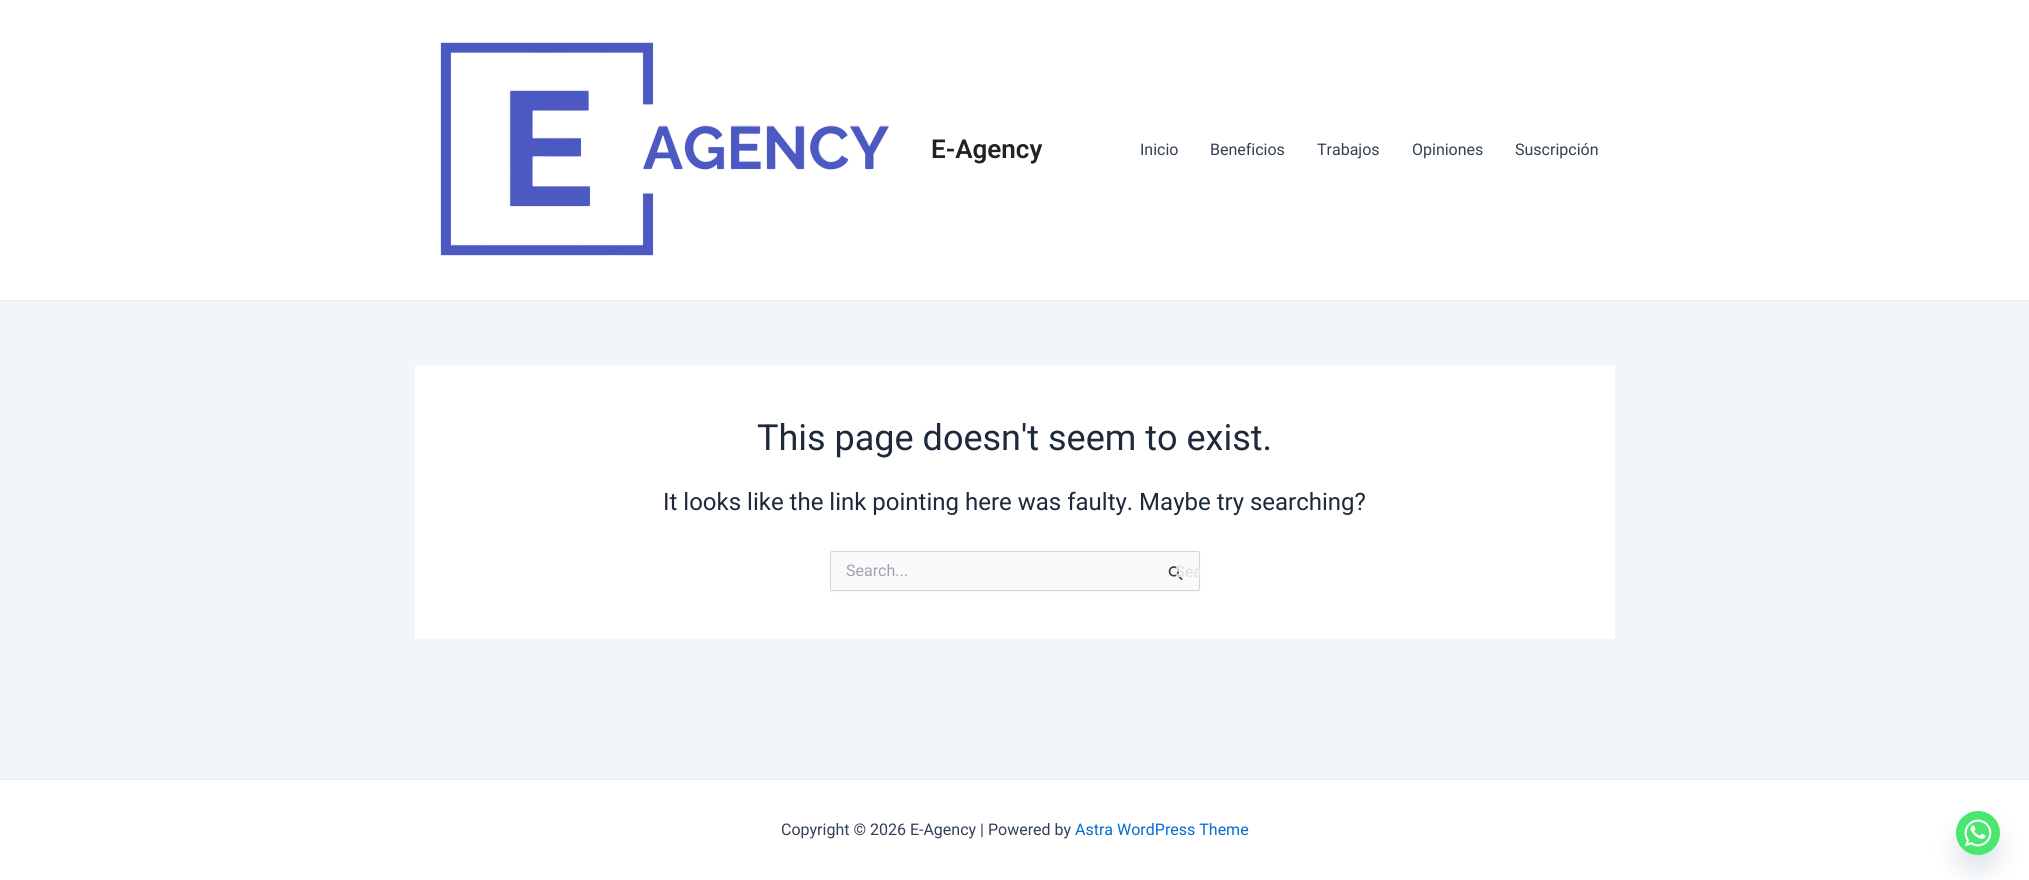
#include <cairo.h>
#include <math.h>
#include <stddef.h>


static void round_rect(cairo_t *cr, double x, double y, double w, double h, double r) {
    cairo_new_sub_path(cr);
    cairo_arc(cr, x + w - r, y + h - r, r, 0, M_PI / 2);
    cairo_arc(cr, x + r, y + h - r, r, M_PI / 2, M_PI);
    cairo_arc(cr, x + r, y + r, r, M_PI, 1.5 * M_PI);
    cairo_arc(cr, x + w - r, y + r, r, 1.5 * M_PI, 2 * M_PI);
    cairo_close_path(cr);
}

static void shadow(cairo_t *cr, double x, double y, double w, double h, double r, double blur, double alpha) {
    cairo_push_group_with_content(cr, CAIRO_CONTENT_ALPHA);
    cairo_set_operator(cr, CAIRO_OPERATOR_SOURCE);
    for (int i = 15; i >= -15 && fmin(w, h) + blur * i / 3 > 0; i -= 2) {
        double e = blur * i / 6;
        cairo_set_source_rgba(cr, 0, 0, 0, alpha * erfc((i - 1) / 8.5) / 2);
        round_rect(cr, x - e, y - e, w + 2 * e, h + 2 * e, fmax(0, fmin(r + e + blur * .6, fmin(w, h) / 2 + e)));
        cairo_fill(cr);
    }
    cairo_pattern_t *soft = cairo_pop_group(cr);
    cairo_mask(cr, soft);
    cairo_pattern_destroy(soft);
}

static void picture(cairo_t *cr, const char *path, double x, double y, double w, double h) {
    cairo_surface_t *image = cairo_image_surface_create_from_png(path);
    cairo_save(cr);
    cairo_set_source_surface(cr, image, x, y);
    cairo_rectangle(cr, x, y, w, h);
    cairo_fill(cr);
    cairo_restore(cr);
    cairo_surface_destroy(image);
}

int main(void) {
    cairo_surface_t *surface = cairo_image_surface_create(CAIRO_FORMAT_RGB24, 2029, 880);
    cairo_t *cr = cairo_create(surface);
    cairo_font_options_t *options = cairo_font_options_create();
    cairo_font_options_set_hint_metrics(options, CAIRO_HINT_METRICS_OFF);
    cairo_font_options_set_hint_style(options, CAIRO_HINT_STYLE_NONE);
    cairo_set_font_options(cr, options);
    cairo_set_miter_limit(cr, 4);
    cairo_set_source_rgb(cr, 0.941, 0.961, 0.98);
    cairo_paint(cr);
    cairo_set_source_rgb(cr, 1, 1, 1);
    cairo_rectangle(cr, 0, 0, 2029, 300);
    cairo_fill(cr);
    cairo_set_source_rgb(cr, 0.918, 0.918, 0.918);
    cairo_rectangle(cr, 0, 300, 2029, 1);
    cairo_fill(cr);
    picture(cr, "img1.png", 440, 42, 449, 214);
    cairo_select_font_face(cr, "Roboto SemiBold", CAIRO_FONT_SLANT_NORMAL, CAIRO_FONT_WEIGHT_NORMAL);
    cairo_set_font_size(cr, 26);
    cairo_set_source_rgb(cr, 0.133, 0.133, 0.133);
    cairo_move_to(cr, 931, 158);
    cairo_show_text(cr, "E-Agency");
    cairo_select_font_face(cr, "Roboto", CAIRO_FONT_SLANT_NORMAL, CAIRO_FONT_WEIGHT_NORMAL);
    cairo_set_font_size(cr, 16);
    cairo_set_source_rgb(cr, 0.2, 0.255, 0.333);
    cairo_move_to(cr, 1140, 155);
    cairo_show_text(cr, "Inicio");
    cairo_move_to(cr, 1210, 155);
    cairo_show_text(cr, "Beneficios");
    cairo_move_to(cr, 1317, 155);
    cairo_show_text(cr, "Trabajos");
    cairo_move_to(cr, 1412, 155);
    cairo_show_text(cr, "Opiniones");
    cairo_move_to(cr, 1515, 155);
    cairo_show_text(cr, "Suscripción");
    cairo_set_source_rgb(cr, 1, 1, 1);
    cairo_rectangle(cr, 415, 365, 1200, 274);
    cairo_fill(cr);
    cairo_set_font_size(cr, 36);
    cairo_set_source_rgb(cr, 0.118, 0.161, 0.231);
    cairo_move_to(cr, 757, 450);
    cairo_show_text(cr, "This page doesn't seem to exist.");
    cairo_set_font_size(cr, 24);
    cairo_move_to(cr, 663, 510);
    cairo_show_text(cr, "It looks like the link pointing here was faulty. Maybe try searching?");
    cairo_set_source_rgb(cr, 0, 0, 0);
    shadow(cr, 830, 552, 370, 40, 2, 1, 0.05);
    cairo_set_source_rgb(cr, 0.98, 0.98, 0.98);
    round_rect(cr, 830.5, 551.5, 369, 39, 1.5);
    cairo_fill_preserve(cr);
    cairo_set_source_rgb(cr, 0.82, 0.835, 0.859);
    cairo_set_line_width(cr, 1);
    cairo_stroke(cr);
    cairo_set_font_size(cr, 16);
    cairo_set_source_rgb(cr, 0.612, 0.639, 0.686);
    cairo_move_to(cr, 846, 576);
    cairo_show_text(cr, "Search...");
    picture(cr, "img2.png", 1168, 566, 15, 15);
    cairo_save(cr);
    round_rect(cr, 1155, 551, 45, 42, 2);
    cairo_clip(cr);
    cairo_select_font_face(cr, "Roboto Medium", CAIRO_FONT_SLANT_NORMAL, CAIRO_FONT_WEIGHT_NORMAL);
    cairo_set_source_rgb(cr, 0.886, 0.89, 0.89);
    cairo_move_to(cr, 1175, 577);
    cairo_show_text(cr, "Sea");
    cairo_restore(cr);
    cairo_set_source_rgb(cr, 1, 1, 1);
    cairo_rectangle(cr, 0, 780, 2029, 100);
    cairo_fill(cr);
    cairo_set_source_rgb(cr, 0.918, 0.918, 0.918);
    cairo_rectangle(cr, 0, 779, 2029, 1);
    cairo_fill(cr);
    cairo_set_source_rgb(cr, 0.2, 0.255, 0.333);
    cairo_move_to(cr, 781, 835);
    cairo_show_text(cr, "Copyright © 2026 E-Agency | Powered by");
    cairo_set_source_rgb(cr, 0.016, 0.42, 0.824);
    cairo_move_to(cr, 1075, 835);
    cairo_show_text(cr, "Astra WordPress Theme");
    cairo_set_source_rgb(cr, 0.286, 0.408, 0.494);
    shadow(cr, 1956, 827, 44, 44, 22, 12, 0.16);
    picture(cr, "img3.png", 1956, 811, 44, 44);
    cairo_surface_write_to_png(surface, "page.png");
    cairo_font_options_destroy(options);
    cairo_destroy(cr);
    cairo_surface_destroy(surface);
    return 0;
}
